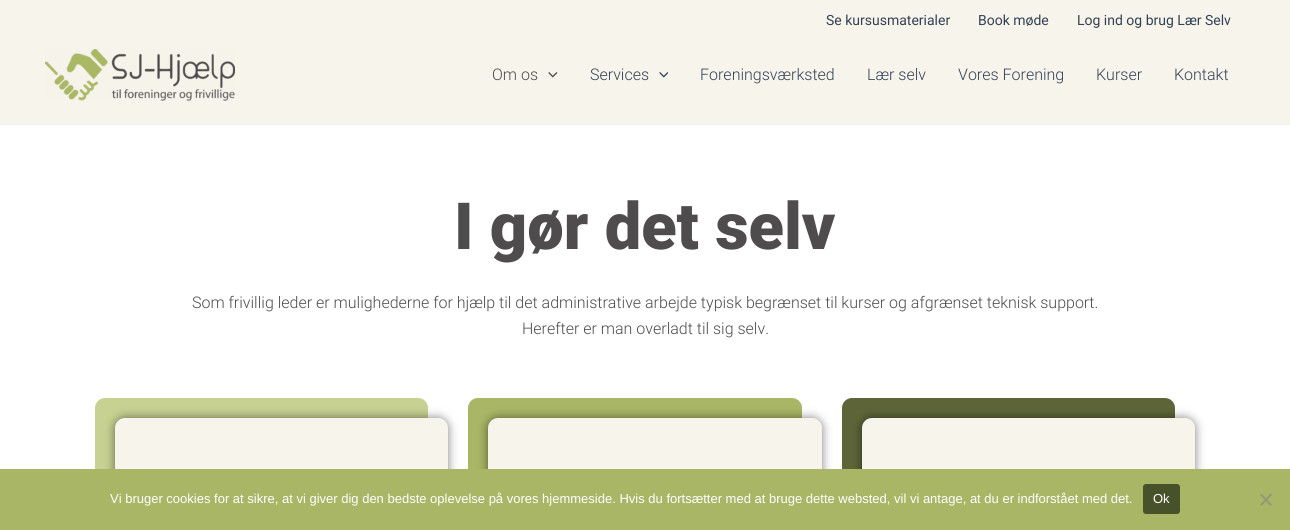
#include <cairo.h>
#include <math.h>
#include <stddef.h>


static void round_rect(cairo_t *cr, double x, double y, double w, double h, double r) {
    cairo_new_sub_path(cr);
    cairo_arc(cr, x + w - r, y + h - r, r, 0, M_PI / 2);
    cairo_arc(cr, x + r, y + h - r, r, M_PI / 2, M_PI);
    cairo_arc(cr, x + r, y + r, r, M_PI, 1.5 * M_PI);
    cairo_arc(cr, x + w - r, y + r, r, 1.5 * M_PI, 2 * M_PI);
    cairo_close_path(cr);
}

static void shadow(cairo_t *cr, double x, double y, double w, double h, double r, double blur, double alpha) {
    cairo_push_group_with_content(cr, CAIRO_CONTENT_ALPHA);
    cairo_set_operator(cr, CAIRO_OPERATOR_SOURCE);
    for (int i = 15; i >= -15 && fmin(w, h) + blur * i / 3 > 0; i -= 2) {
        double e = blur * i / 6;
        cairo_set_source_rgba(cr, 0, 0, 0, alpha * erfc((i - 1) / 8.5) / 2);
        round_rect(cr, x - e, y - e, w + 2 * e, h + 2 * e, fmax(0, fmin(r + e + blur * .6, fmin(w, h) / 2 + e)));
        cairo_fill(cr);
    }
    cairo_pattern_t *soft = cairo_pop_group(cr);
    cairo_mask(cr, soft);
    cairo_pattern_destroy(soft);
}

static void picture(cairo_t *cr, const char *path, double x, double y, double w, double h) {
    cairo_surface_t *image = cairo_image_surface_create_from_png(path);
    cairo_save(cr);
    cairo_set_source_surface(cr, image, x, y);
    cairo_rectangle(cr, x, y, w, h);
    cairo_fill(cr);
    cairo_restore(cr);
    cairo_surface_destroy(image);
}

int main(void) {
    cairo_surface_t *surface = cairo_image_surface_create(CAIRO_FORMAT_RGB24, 1290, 530);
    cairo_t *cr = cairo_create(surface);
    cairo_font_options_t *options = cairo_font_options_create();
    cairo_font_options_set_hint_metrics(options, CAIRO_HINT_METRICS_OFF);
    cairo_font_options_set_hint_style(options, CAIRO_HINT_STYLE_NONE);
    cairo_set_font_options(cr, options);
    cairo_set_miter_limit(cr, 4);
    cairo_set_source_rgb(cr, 1, 1, 1);
    cairo_paint(cr);
    cairo_set_source_rgb(cr, 0.965, 0.957, 0.922);
    cairo_rectangle(cr, 0, 0, 1290, 125);
    cairo_fill(cr);
    cairo_select_font_face(cr, "Roboto", CAIRO_FONT_SLANT_NORMAL, CAIRO_FONT_WEIGHT_NORMAL);
    cairo_set_font_size(cr, 14);
    cairo_set_source_rgb(cr, 0.2, 0.255, 0.333);
    cairo_move_to(cr, 826, 25);
    cairo_show_text(cr, "Se kursusmaterialer");
    cairo_move_to(cr, 978, 25);
    cairo_show_text(cr, "Book møde");
    cairo_move_to(cr, 1077, 25);
    cairo_show_text(cr, "Log ind og brug Lær Selv");
    picture(cr, "img1.png", 45, 49, 190, 52);
    cairo_select_font_face(cr, "Roboto Light", CAIRO_FONT_SLANT_NORMAL, CAIRO_FONT_WEIGHT_NORMAL);
    cairo_set_font_size(cr, 16);
    cairo_set_source_rgb(cr, 0.306, 0.298, 0.298);
    cairo_move_to(cr, 492, 80);
    cairo_show_text(cr, "Om os");
    picture(cr, "img2.png", 548, 72, 10, 6);
    cairo_set_source_rgb(cr, 0.2, 0.255, 0.333);
    cairo_move_to(cr, 590, 80);
    cairo_show_text(cr, "Services");
    picture(cr, "img3.png", 659, 72, 9, 6);
    cairo_move_to(cr, 700, 80);
    cairo_show_text(cr, "Foreningsværksted");
    cairo_move_to(cr, 867, 80);
    cairo_show_text(cr, "Lær selv");
    cairo_move_to(cr, 958, 80);
    cairo_show_text(cr, "Vores Forening");
    cairo_move_to(cr, 1096, 80);
    cairo_show_text(cr, "Kurser");
    cairo_move_to(cr, 1174, 80);
    cairo_show_text(cr, "Kontakt");
    cairo_select_font_face(cr, "Roboto Black", CAIRO_FONT_SLANT_NORMAL, CAIRO_FONT_WEIGHT_NORMAL);
    cairo_set_font_size(cr, 65);
    cairo_set_source_rgb(cr, 0.306, 0.298, 0.298);
    cairo_move_to(cr, 454, 249);
    cairo_show_text(cr, "I gør det selv");
    cairo_select_font_face(cr, "Roboto Light", CAIRO_FONT_SLANT_NORMAL, CAIRO_FONT_WEIGHT_NORMAL);
    cairo_set_font_size(cr, 16);
    cairo_move_to(cr, 192, 308);
    cairo_show_text(cr, "Som frivillig leder er mulighederne for hjælp til det administrative arbejde typisk begrænset til kurser og afgrænset teknisk support.");
    cairo_move_to(cr, 522, 334);
    cairo_show_text(cr, "Herefter er man overladt til sig selv.");
    cairo_set_source_rgb(cr, 0.776, 0.82, 0.573);
    round_rect(cr, 95, 398, 333, 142, 10);
    cairo_fill(cr);
    cairo_set_source_rgb(cr, 0, 0, 0);
    shadow(cr, 115, 418, 333, 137, 10, 5, 0.5);
    cairo_set_source_rgb(cr, 0.965, 0.957, 0.922);
    round_rect(cr, 115, 418, 333, 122, 10);
    cairo_fill(cr);
    cairo_set_source_rgb(cr, 0.659, 0.714, 0.4);
    round_rect(cr, 468, 398, 334, 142, 10);
    cairo_fill(cr);
    cairo_set_source_rgb(cr, 0, 0, 0);
    shadow(cr, 488, 418, 334, 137, 10, 5, 0.5);
    cairo_set_source_rgb(cr, 0.965, 0.957, 0.922);
    round_rect(cr, 488, 418, 334, 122, 10);
    cairo_fill(cr);
    cairo_set_source_rgb(cr, 0.365, 0.396, 0.22);
    round_rect(cr, 842, 398, 333, 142, 10);
    cairo_fill(cr);
    cairo_set_source_rgb(cr, 0, 0, 0);
    shadow(cr, 862, 418, 333, 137, 10, 5, 0.5);
    cairo_set_source_rgb(cr, 0.965, 0.957, 0.922);
    round_rect(cr, 862, 418, 333, 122, 10);
    cairo_fill(cr);
    cairo_set_source_rgb(cr, 0.659, 0.714, 0.4);
    cairo_rectangle(cr, 0, 469, 1290, 61);
    cairo_fill(cr);
    cairo_select_font_face(cr, "Liberation Sans", CAIRO_FONT_SLANT_NORMAL, CAIRO_FONT_WEIGHT_NORMAL);
    cairo_set_font_size(cr, 13);
    cairo_set_source_rgb(cr, 1, 1, 1);
    cairo_move_to(cr, 110, 503);
    cairo_show_text(cr, "Vi bruger cookies for at sikre, at vi giver dig den bedste oplevelse på vores hjemmeside. Hvis du fortsætter med at bruge dette websted, vil vi antage, at du er indforstået med det.");
    cairo_set_source_rgb(cr, 0.282, 0.322, 0.165);
    round_rect(cr, 1143, 484, 37, 30, 3);
    cairo_fill(cr);
    cairo_set_source_rgb(cr, 1, 1, 1);
    cairo_move_to(cr, 1153, 503);
    cairo_show_text(cr, "Ok");
    cairo_set_source_rgb(cr, 0.58, 0.608, 0.451);
    cairo_new_path(cr);
    cairo_move_to(cr, 1270.5, 493.5);
    cairo_line_to(cr, 1272, 495);
    cairo_line_to(cr, 1261.5, 506);
    cairo_line_to(cr, 1260, 504.5);
    cairo_close_path(cr);
    cairo_fill(cr);
    cairo_new_path(cr);
    cairo_move_to(cr, 1260, 495);
    cairo_line_to(cr, 1261.5, 493.5);
    cairo_line_to(cr, 1272, 504.5);
    cairo_line_to(cr, 1270.5, 506);
    cairo_close_path(cr);
    cairo_fill(cr);
    cairo_surface_write_to_png(surface, "page.png");
    cairo_font_options_destroy(options);
    cairo_destroy(cr);
    cairo_surface_destroy(surface);
    return 0;
}
